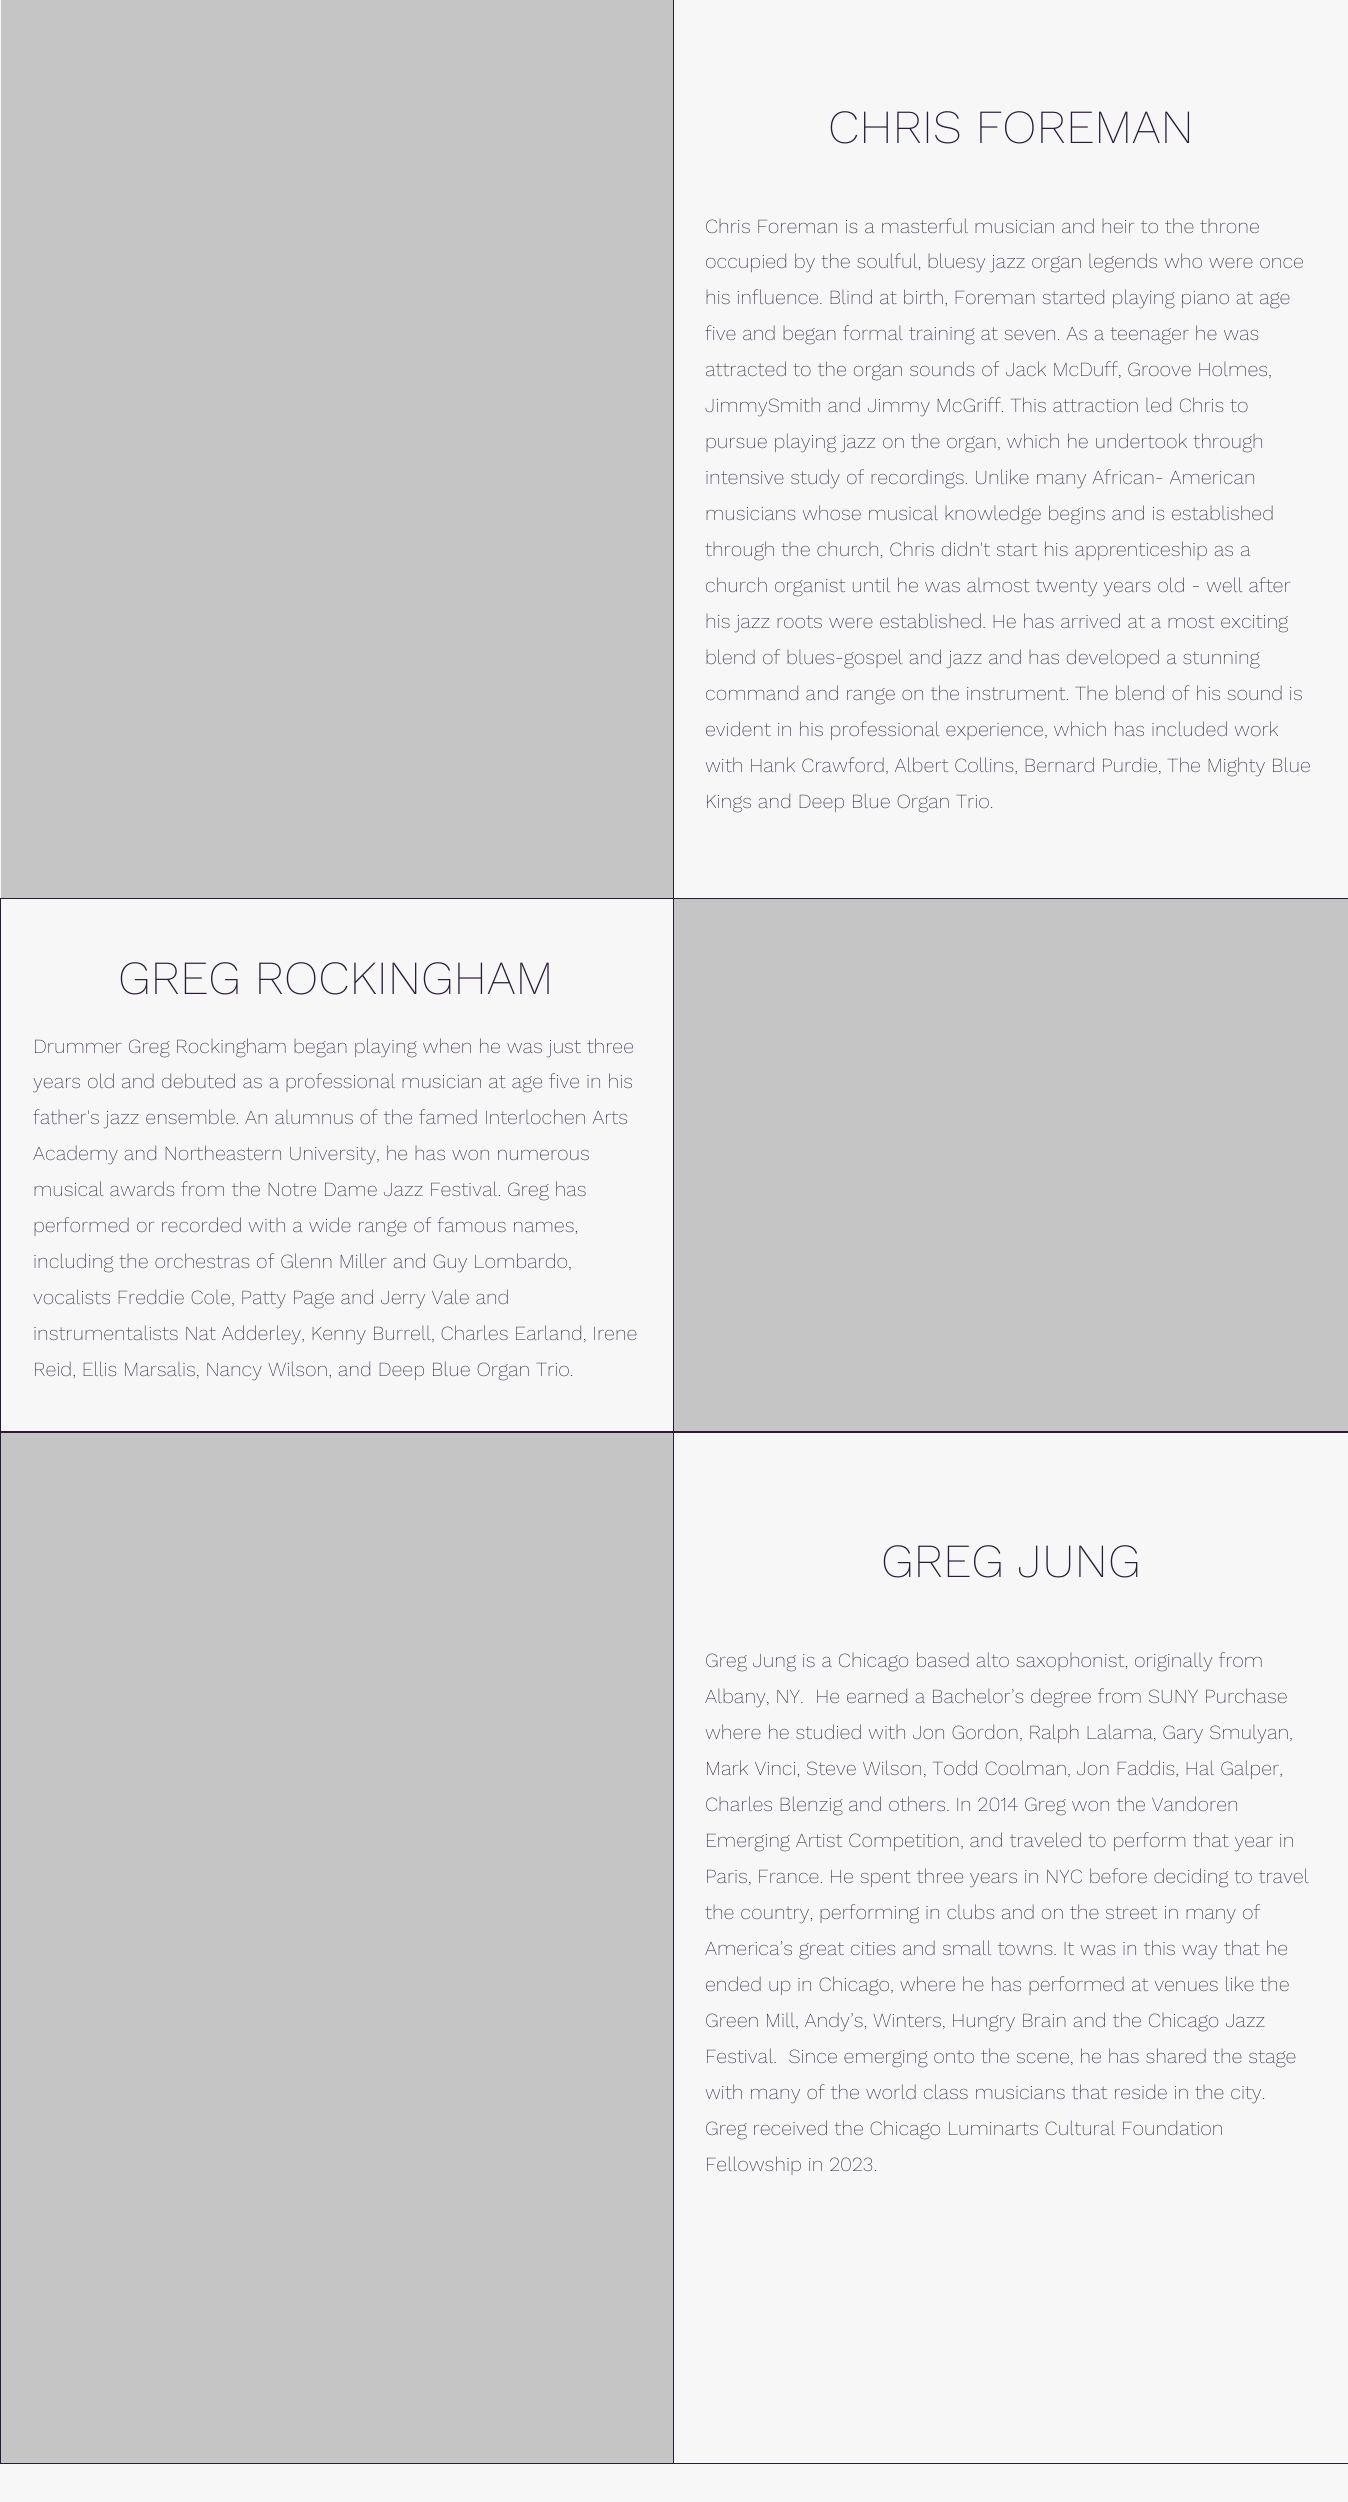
#include <cairo.h>
#include <math.h>
#include <stddef.h>


int main(void) {
    cairo_surface_t *surface = cairo_image_surface_create(CAIRO_FORMAT_RGB24, 1348, 2502);
    cairo_t *cr = cairo_create(surface);
    cairo_font_options_t *options = cairo_font_options_create();
    cairo_font_options_set_hint_metrics(options, CAIRO_HINT_METRICS_OFF);
    cairo_font_options_set_hint_style(options, CAIRO_HINT_STYLE_NONE);
    cairo_set_font_options(cr, options);
    cairo_set_miter_limit(cr, 4);
    cairo_set_source_rgb(cr, 0.965, 0.965, 0.965);
    cairo_paint(cr);
    cairo_set_source_rgb(cr, 0.137, 0.137, 0.137);
    cairo_rectangle(cr, 673, 0, 1, 898);
    cairo_fill(cr);
    cairo_set_source_rgb(cr, 0.773, 0.773, 0.773);
    cairo_rectangle(cr, 1, 0, 672, 898);
    cairo_fill(cr);
    cairo_select_font_face(cr, "Work Sans ExtraLight", CAIRO_FONT_SLANT_NORMAL, CAIRO_FONT_WEIGHT_NORMAL);
    cairo_set_font_size(cr, 47.5);
    cairo_set_source_rgb(cr, 0.157, 0.102, 0.224);
    cairo_move_to(cr, 828, 143);
    cairo_show_text(cr, "CHRIS FOREMAN");
    cairo_set_font_size(cr, 20);
    cairo_move_to(cr, 705, 233);
    cairo_show_text(cr, "Chris Foreman is a masterful musician and heir to the throne");
    cairo_move_to(cr, 705, 268);
    cairo_show_text(cr, "occupied by the soulful, bluesy jazz organ legends who were once");
    cairo_move_to(cr, 705, 304);
    cairo_show_text(cr, "his influence. Blind at birth, Foreman started playing piano at age");
    cairo_move_to(cr, 705, 340);
    cairo_show_text(cr, "five and began formal training at seven. As a teenager he was");
    cairo_move_to(cr, 705, 376);
    cairo_show_text(cr, "attracted to the organ sounds of Jack McDuff, Groove Holmes,");
    cairo_move_to(cr, 705, 412);
    cairo_show_text(cr, "JimmySmith and Jimmy McGriff. This attraction led Chris to");
    cairo_move_to(cr, 705, 448);
    cairo_show_text(cr, "pursue playing jazz on the organ, which he undertook through");
    cairo_move_to(cr, 705, 484);
    cairo_show_text(cr, "intensive study of recordings. Unlike many African- American");
    cairo_move_to(cr, 705, 520);
    cairo_show_text(cr, "musicians whose musical knowledge begins and is established");
    cairo_move_to(cr, 705, 556);
    cairo_show_text(cr, "through the church, Chris didn't start his apprenticeship as a");
    cairo_move_to(cr, 705, 592);
    cairo_show_text(cr, "church organist until he was almost twenty years old - well after");
    cairo_move_to(cr, 705, 628);
    cairo_show_text(cr, "his jazz roots were established. He has arrived at a most exciting");
    cairo_move_to(cr, 705, 664);
    cairo_show_text(cr, "blend of blues-gospel and jazz and has developed a stunning");
    cairo_move_to(cr, 705, 700);
    cairo_show_text(cr, "command and range on the instrument. The blend of his sound is");
    cairo_move_to(cr, 705, 736);
    cairo_show_text(cr, "evident in his professional experience, which has included work");
    cairo_move_to(cr, 705, 772);
    cairo_show_text(cr, "with Hank Crawford, Albert Collins, Bernard Purdie, The Mighty Blue");
    cairo_move_to(cr, 705, 808);
    cairo_show_text(cr, "Kings and Deep Blue Organ Trio.");
    cairo_rectangle(cr, 0, 898, 1348, 1566);
    cairo_fill(cr);
    cairo_set_source_rgb(cr, 0.965, 0.965, 0.965);
    cairo_rectangle(cr, 1, 899, 672, 532);
    cairo_fill(cr);
    cairo_set_font_size(cr, 47.5);
    cairo_set_source_rgb(cr, 0.157, 0.102, 0.224);
    cairo_move_to(cr, 118, 994);
    cairo_show_text(cr, "GREG ROCKINGHAM");
    cairo_set_font_size(cr, 20);
    cairo_move_to(cr, 33, 1053);
    cairo_show_text(cr, "Drummer Greg Rockingham began playing when he was just three");
    cairo_move_to(cr, 33, 1088);
    cairo_show_text(cr, "years old and debuted as a professional musician at age five in his");
    cairo_move_to(cr, 33, 1124);
    cairo_show_text(cr, "father's jazz ensemble. An alumnus of the famed Interlochen Arts");
    cairo_move_to(cr, 33, 1160);
    cairo_show_text(cr, "Academy and Northeastern University, he has won numerous");
    cairo_move_to(cr, 33, 1196);
    cairo_show_text(cr, "musical awards from the Notre Dame Jazz Festival. Greg has");
    cairo_move_to(cr, 33, 1232);
    cairo_show_text(cr, "performed or recorded with a wide range of famous names,");
    cairo_move_to(cr, 33, 1268);
    cairo_show_text(cr, "including the orchestras of Glenn Miller and Guy Lombardo,");
    cairo_move_to(cr, 33, 1304);
    cairo_show_text(cr, "vocalists Freddie Cole, Patty Page and Jerry Vale and");
    cairo_move_to(cr, 33, 1340);
    cairo_show_text(cr, "instrumentalists Nat Adderley, Kenny Burrell, Charles Earland, Irene");
    cairo_move_to(cr, 33, 1376);
    cairo_show_text(cr, "Reid, Ellis Marsalis, Nancy Wilson, and Deep Blue Organ Trio.");
    cairo_set_source_rgb(cr, 0.773, 0.773, 0.773);
    cairo_rectangle(cr, 674, 899, 674, 532);
    cairo_fill(cr);
    cairo_rectangle(cr, 1, 1433, 672, 1030);
    cairo_fill(cr);
    cairo_set_source_rgb(cr, 0.965, 0.965, 0.965);
    cairo_rectangle(cr, 674, 1433, 674, 1030);
    cairo_fill(cr);
    cairo_set_font_size(cr, 47.5);
    cairo_set_source_rgb(cr, 0.157, 0.102, 0.224);
    cairo_move_to(cr, 881, 1577);
    cairo_show_text(cr, "GREG JUNG");
    cairo_set_font_size(cr, 20);
    cairo_move_to(cr, 705, 1667);
    cairo_show_text(cr, "Greg Jung is a Chicago based alto saxophonist, originally from");
    cairo_move_to(cr, 705, 1703);
    cairo_show_text(cr, "Albany, NY.  He earned a Bachelor’s degree from SUNY Purchase");
    cairo_move_to(cr, 705, 1739);
    cairo_show_text(cr, "where he studied with Jon Gordon, Ralph Lalama, Gary Smulyan,");
    cairo_move_to(cr, 705, 1775);
    cairo_show_text(cr, "Mark Vinci, Steve Wilson, Todd Coolman, Jon Faddis, Hal Galper,");
    cairo_move_to(cr, 705, 1811);
    cairo_show_text(cr, "Charles Blenzig and others. In 2014 Greg won the Vandoren");
    cairo_move_to(cr, 705, 1847);
    cairo_show_text(cr, "Emerging Artist Competition, and traveled to perform that year in");
    cairo_move_to(cr, 705, 1883);
    cairo_show_text(cr, "Paris, France. He spent three years in NYC before deciding to travel");
    cairo_move_to(cr, 705, 1919);
    cairo_show_text(cr, "the country, performing in clubs and on the street in many of");
    cairo_move_to(cr, 705, 1955);
    cairo_show_text(cr, "America’s great cities and small towns. It was in this way that he");
    cairo_move_to(cr, 705, 1991);
    cairo_show_text(cr, "ended up in Chicago, where he has performed at venues like the");
    cairo_move_to(cr, 705, 2027);
    cairo_show_text(cr, "Green Mill, Andy’s, Winters, Hungry Brain and the Chicago Jazz");
    cairo_move_to(cr, 705, 2063);
    cairo_show_text(cr, "Festival.  Since emerging onto the scene, he has shared the stage");
    cairo_move_to(cr, 705, 2099);
    cairo_show_text(cr, "with many of the world class musicians that reside in the city.");
    cairo_move_to(cr, 705, 2135);
    cairo_show_text(cr, "Greg received the Chicago Luminarts Cultural Foundation");
    cairo_move_to(cr, 705, 2171);
    cairo_show_text(cr, "Fellowship in 2023.");
    cairo_surface_write_to_png(surface, "page.png");
    cairo_font_options_destroy(options);
    cairo_destroy(cr);
    cairo_surface_destroy(surface);
    return 0;
}
